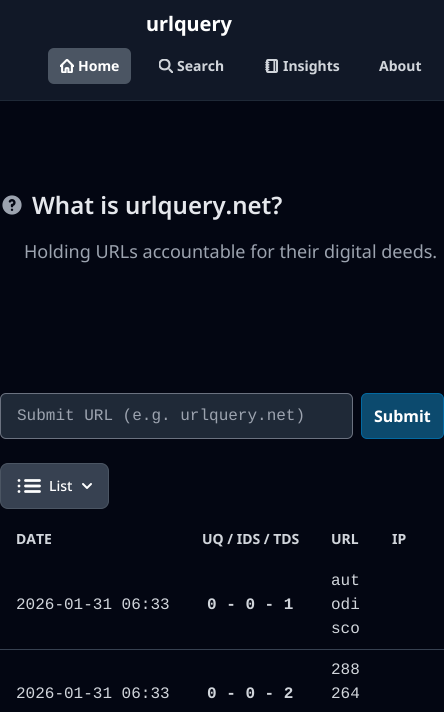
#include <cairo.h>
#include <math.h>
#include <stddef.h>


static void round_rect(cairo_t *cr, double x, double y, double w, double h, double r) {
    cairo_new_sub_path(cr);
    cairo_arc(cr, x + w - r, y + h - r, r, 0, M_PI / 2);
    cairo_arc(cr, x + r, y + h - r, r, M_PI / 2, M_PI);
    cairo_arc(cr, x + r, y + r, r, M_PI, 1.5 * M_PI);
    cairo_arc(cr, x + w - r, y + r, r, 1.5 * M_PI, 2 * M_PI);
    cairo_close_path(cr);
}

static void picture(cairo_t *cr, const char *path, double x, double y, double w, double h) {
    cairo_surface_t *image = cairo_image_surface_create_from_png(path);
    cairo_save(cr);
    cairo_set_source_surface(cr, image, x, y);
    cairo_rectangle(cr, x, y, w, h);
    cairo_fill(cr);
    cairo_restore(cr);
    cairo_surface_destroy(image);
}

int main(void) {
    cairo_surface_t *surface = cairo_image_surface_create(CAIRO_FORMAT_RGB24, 444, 712);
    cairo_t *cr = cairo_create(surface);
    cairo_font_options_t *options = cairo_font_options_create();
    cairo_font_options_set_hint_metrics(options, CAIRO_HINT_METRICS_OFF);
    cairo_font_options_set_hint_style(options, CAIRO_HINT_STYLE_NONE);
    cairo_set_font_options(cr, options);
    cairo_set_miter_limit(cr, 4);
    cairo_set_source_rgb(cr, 0.012, 0.027, 0.071);
    cairo_paint(cr);
    cairo_set_source_rgb(cr, 0.122, 0.161, 0.216);
    cairo_rectangle(cr, 0, 100, 444, 1);
    cairo_fill(cr);
    cairo_set_source_rgb(cr, 0.067, 0.094, 0.153);
    cairo_rectangle(cr, 0, 0, 444, 100);
    cairo_fill(cr);
    cairo_select_font_face(cr, "Noto Sans", CAIRO_FONT_SLANT_NORMAL, CAIRO_FONT_WEIGHT_BOLD);
    cairo_set_font_size(cr, 20);
    cairo_set_source_rgb(cr, 1, 1, 1);
    cairo_move_to(cr, 146, 31);
    cairo_show_text(cr, "urlquery");
    cairo_set_source_rgb(cr, 0.294, 0.333, 0.388);
    round_rect(cr, 48, 48, 83, 36, 6);
    cairo_fill(cr);
    picture(cr, "img1.png", 60, 59, 14, 14);
    cairo_set_font_size(cr, 14);
    cairo_set_source_rgb(cr, 1, 1, 1);
    cairo_move_to(cr, 78, 71);
    cairo_show_text(cr, "Home");
    cairo_save(cr);
    cairo_rectangle(cr, 159, 59, 14, 14);
    cairo_clip(cr);
    cairo_new_path(cr);
    cairo_move_to(cr, 172.5, 72.5);
    cairo_line_to(cr, 169.5, 69.5);
    cairo_move_to(cr, 169.5, 64.5);
    cairo_curve_to(cr, 169.5, 71, 159.5, 71, 159.5, 64.5);
    cairo_curve_to(cr, 159.5, 58, 169.5, 58, 169.5, 64.5);
    cairo_close_path(cr);
    cairo_set_source_rgb(cr, 0.82, 0.835, 0.859);
    cairo_set_line_width(cr, 2.1);
    cairo_set_line_cap(cr, CAIRO_LINE_CAP_ROUND);
    cairo_set_line_join(cr, CAIRO_LINE_JOIN_ROUND);
    cairo_stroke(cr);
    cairo_restore(cr);
    cairo_set_source_rgb(cr, 0.82, 0.835, 0.859);
    cairo_move_to(cr, 177, 71);
    cairo_show_text(cr, "Search");
    picture(cr, "img2.png", 265, 59, 13, 14);
    cairo_move_to(cr, 283, 71);
    cairo_show_text(cr, "Insights");
    cairo_move_to(cr, 379, 71);
    cairo_show_text(cr, "About");
    picture(cr, "img3.png", 2, 195, 20, 20);
    cairo_select_font_face(cr, "Noto Sans SemiBold", CAIRO_FONT_SLANT_NORMAL, CAIRO_FONT_WEIGHT_NORMAL);
    cairo_set_font_size(cr, 24);
    cairo_set_source_rgb(cr, 0.898, 0.906, 0.922);
    cairo_move_to(cr, 32, 214);
    cairo_show_text(cr, "What is urlquery.net?");
    cairo_select_font_face(cr, "Noto Sans", CAIRO_FONT_SLANT_NORMAL, CAIRO_FONT_WEIGHT_NORMAL);
    cairo_set_font_size(cr, 18);
    cairo_set_source_rgb(cr, 0.612, 0.639, 0.686);
    cairo_move_to(cr, 24, 258);
    cairo_show_text(cr, "Holding URLs accountable for their digital deeds.");
    cairo_set_source_rgb(cr, 0.122, 0.161, 0.216);
    round_rect(cr, 0.5, 393.5, 352, 45, 5.5);
    cairo_fill_preserve(cr);
    cairo_set_source_rgb(cr, 0.42, 0.447, 0.502);
    cairo_set_line_width(cr, 1);
    cairo_stroke(cr);
    cairo_select_font_face(cr, "Liberation Mono", CAIRO_FONT_SLANT_NORMAL, CAIRO_FONT_WEIGHT_NORMAL);
    cairo_set_font_size(cr, 16);
    cairo_set_source_rgb(cr, 0.612, 0.639, 0.686);
    cairo_move_to(cr, 17, 420);
    cairo_show_text(cr, "Submit URL (e.g. urlquery.net)");
    cairo_set_source_rgb(cr, 0.047, 0.29, 0.431);
    round_rect(cr, 361.5, 393.5, 82, 45, 5.5);
    cairo_fill_preserve(cr);
    cairo_set_source_rgb(cr, 0.012, 0.412, 0.631);
    cairo_stroke(cr);
    cairo_select_font_face(cr, "Noto Sans", CAIRO_FONT_SLANT_NORMAL, CAIRO_FONT_WEIGHT_BOLD);
    cairo_set_source_rgb(cr, 1, 1, 1);
    cairo_move_to(cr, 374, 422);
    cairo_show_text(cr, "Submit");
    cairo_set_source_rgb(cr, 0.216, 0.255, 0.318);
    round_rect(cr, 0.5, 463.5, 108, 45, 7.5);
    cairo_fill_preserve(cr);
    cairo_set_source_rgb(cr, 0.294, 0.333, 0.388);
    cairo_stroke(cr);
    cairo_new_path(cr);
    cairo_move_to(cr, 25.5, 480.5);
    cairo_line_to(cr, 39.5, 480.5);
    cairo_move_to(cr, 25.5, 486);
    cairo_line_to(cr, 39.5, 486);
    cairo_move_to(cr, 25.5, 491.5);
    cairo_line_to(cr, 39.5, 491.5);
    cairo_move_to(cr, 19, 480.5);
    cairo_line_to(cr, 19, 480.5);
    cairo_move_to(cr, 19, 486);
    cairo_line_to(cr, 19, 486);
    cairo_move_to(cr, 19, 491.5);
    cairo_line_to(cr, 19, 491.5);
    cairo_set_source_rgb(cr, 1, 1, 1);
    cairo_set_line_width(cr, 2.8);
    cairo_set_line_cap(cr, CAIRO_LINE_CAP_ROUND);
    cairo_stroke(cr);
    cairo_select_font_face(cr, "Noto Sans Medium", CAIRO_FONT_SLANT_NORMAL, CAIRO_FONT_WEIGHT_NORMAL);
    cairo_set_font_size(cr, 14);
    cairo_move_to(cr, 49, 491);
    cairo_show_text(cr, "List");
    cairo_new_path(cr);
    cairo_move_to(cr, 83, 484);
    cairo_line_to(cr, 87, 488);
    cairo_line_to(cr, 91, 484);
    cairo_set_line_width(cr, 2);
    cairo_set_line_join(cr, CAIRO_LINE_JOIN_ROUND);
    cairo_stroke(cr);
    cairo_select_font_face(cr, "Noto Sans", CAIRO_FONT_SLANT_NORMAL, CAIRO_FONT_WEIGHT_BOLD);
    cairo_set_source_rgb(cr, 0.82, 0.835, 0.859);
    cairo_move_to(cr, 16, 544);
    cairo_show_text(cr, "DATE");
    cairo_move_to(cr, 202, 544);
    cairo_show_text(cr, "UQ / IDS / TDS");
    cairo_move_to(cr, 331, 544);
    cairo_show_text(cr, "URL");
    cairo_move_to(cr, 392, 544);
    cairo_show_text(cr, "IP");
    cairo_set_source_rgb(cr, 0.216, 0.255, 0.318);
    cairo_rectangle(cr, 0, 649, 444, 1);
    cairo_fill(cr);
    cairo_select_font_face(cr, "Liberation Mono", CAIRO_FONT_SLANT_NORMAL, CAIRO_FONT_WEIGHT_NORMAL);
    cairo_set_font_size(cr, 16);
    cairo_set_source_rgb(cr, 0.82, 0.835, 0.859);
    cairo_move_to(cr, 16, 609);
    cairo_show_text(cr, "2026-01-31 06:33");
    cairo_select_font_face(cr, "Liberation Mono", CAIRO_FONT_SLANT_NORMAL, CAIRO_FONT_WEIGHT_BOLD);
    cairo_move_to(cr, 207, 609);
    cairo_show_text(cr, "0 - 0 - 1");
    cairo_select_font_face(cr, "Liberation Mono", CAIRO_FONT_SLANT_NORMAL, CAIRO_FONT_WEIGHT_NORMAL);
    cairo_move_to(cr, 331, 585);
    cairo_show_text(cr, "aut");
    cairo_move_to(cr, 331, 609);
    cairo_show_text(cr, "odi");
    cairo_move_to(cr, 331, 633);
    cairo_show_text(cr, "sco");
    cairo_move_to(cr, 16, 698);
    cairo_show_text(cr, "2026-01-31 06:33");
    cairo_select_font_face(cr, "Liberation Mono", CAIRO_FONT_SLANT_NORMAL, CAIRO_FONT_WEIGHT_BOLD);
    cairo_move_to(cr, 207, 698);
    cairo_show_text(cr, "0 - 0 - 2");
    cairo_select_font_face(cr, "Liberation Mono", CAIRO_FONT_SLANT_NORMAL, CAIRO_FONT_WEIGHT_NORMAL);
    cairo_move_to(cr, 331, 674);
    cairo_show_text(cr, "288");
    cairo_move_to(cr, 331, 698);
    cairo_show_text(cr, "264");
    cairo_surface_write_to_png(surface, "page.png");
    cairo_font_options_destroy(options);
    cairo_destroy(cr);
    cairo_surface_destroy(surface);
    return 0;
}
